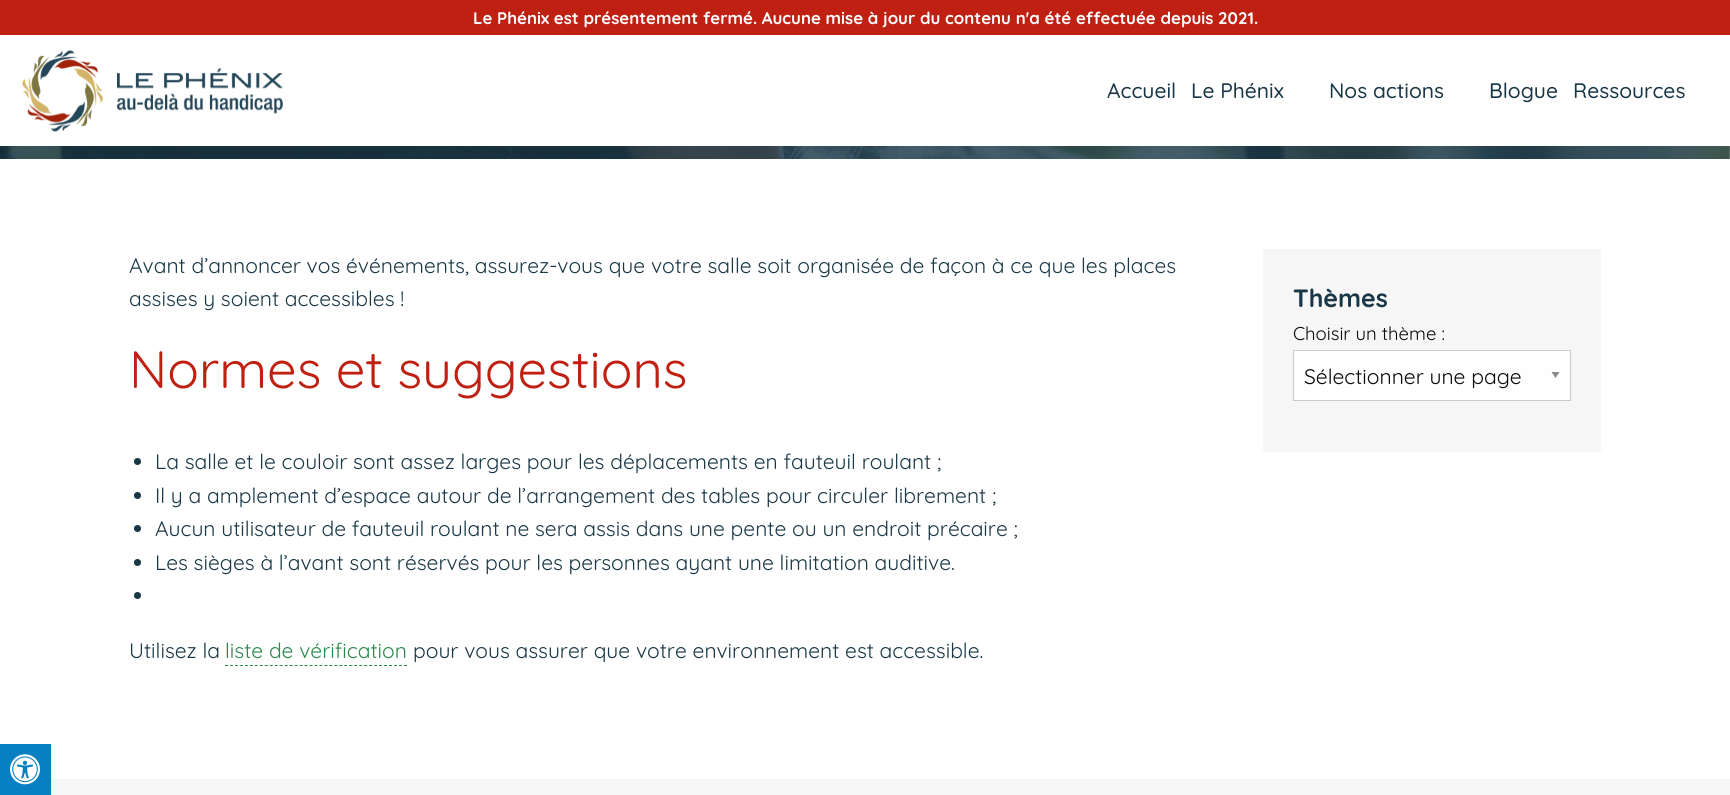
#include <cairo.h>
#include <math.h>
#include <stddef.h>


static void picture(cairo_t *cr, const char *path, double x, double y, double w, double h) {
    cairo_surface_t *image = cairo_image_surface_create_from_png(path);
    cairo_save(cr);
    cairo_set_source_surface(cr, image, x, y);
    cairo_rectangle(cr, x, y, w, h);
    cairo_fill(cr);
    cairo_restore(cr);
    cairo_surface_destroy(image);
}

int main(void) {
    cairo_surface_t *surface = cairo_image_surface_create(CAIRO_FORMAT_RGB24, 1730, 795);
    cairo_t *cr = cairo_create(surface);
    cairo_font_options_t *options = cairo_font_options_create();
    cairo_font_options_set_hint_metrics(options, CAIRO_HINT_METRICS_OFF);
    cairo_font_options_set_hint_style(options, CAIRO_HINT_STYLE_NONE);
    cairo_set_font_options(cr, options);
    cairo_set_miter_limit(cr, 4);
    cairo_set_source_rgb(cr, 1, 1, 1);
    cairo_paint(cr);
    cairo_set_source_rgb(cr, 0.749, 0.125, 0.067);
    cairo_rectangle(cr, 0, 0, 1730, 35);
    cairo_fill(cr);
    cairo_select_font_face(cr, "Quicksand", CAIRO_FONT_SLANT_NORMAL, CAIRO_FONT_WEIGHT_BOLD);
    cairo_set_font_size(cr, 16.8);
    cairo_set_source_rgb(cr, 1, 1, 1);
    cairo_move_to(cr, 473, 24);
    cairo_show_text(cr, "Le Phénix est présentement fermé. Aucune mise à jour du contenu n'a été effectuée depuis 2021.");
    picture(cr, "img1.png", 22, 50, 261, 82);
    cairo_select_font_face(cr, "Quicksand Medium", CAIRO_FONT_SLANT_NORMAL, CAIRO_FONT_WEIGHT_NORMAL);
    cairo_set_font_size(cr, 21);
    cairo_set_source_rgb(cr, 0.098, 0.216, 0.275);
    cairo_move_to(cr, 1107, 98);
    cairo_show_text(cr, "Accueil");
    cairo_move_to(cr, 1191, 98);
    cairo_show_text(cr, "Le Phénix");
    cairo_move_to(cr, 1329, 98);
    cairo_show_text(cr, "Nos actions");
    cairo_move_to(cr, 1489, 98);
    cairo_show_text(cr, "Blogue");
    cairo_move_to(cr, 1573, 98);
    cairo_show_text(cr, "Ressources");
    picture(cr, "img2.png", 0, 146, 1730, 13);
    cairo_select_font_face(cr, "Quicksand", CAIRO_FONT_SLANT_NORMAL, CAIRO_FONT_WEIGHT_NORMAL);
    cairo_move_to(cr, 129, 273);
    cairo_show_text(cr, "Avant d’annoncer vos événements, assurez-vous que votre salle soit organisée de façon à ce que les places");
    cairo_move_to(cr, 129, 306);
    cairo_show_text(cr, "assises y soient accessibles !");
    cairo_set_font_size(cr, 52.5);
    cairo_set_source_rgb(cr, 0.749, 0.125, 0.067);
    cairo_move_to(cr, 129, 388);
    cairo_show_text(cr, "Normes et suggestions");
    cairo_set_source_rgb(cr, 0.098, 0.216, 0.275);
    cairo_new_path(cr);
    cairo_arc(cr, 137.5, 461.5, 3.5, 0, 2 * M_PI);
    cairo_fill(cr);
    cairo_set_font_size(cr, 21);
    cairo_move_to(cr, 155, 469);
    cairo_show_text(cr, "La salle et le couloir sont assez larges pour les déplacements en fauteuil roulant ;");
    cairo_new_path(cr);
    cairo_arc(cr, 137.5, 495.5, 3.5, 0, 2 * M_PI);
    cairo_fill(cr);
    cairo_move_to(cr, 155, 503);
    cairo_show_text(cr, "Il y a amplement d’espace autour de l’arrangement des tables pour circuler librement ;");
    cairo_new_path(cr);
    cairo_arc(cr, 137.5, 528.5, 3.5, 0, 2 * M_PI);
    cairo_fill(cr);
    cairo_move_to(cr, 155, 536);
    cairo_show_text(cr, "Aucun utilisateur de fauteuil roulant ne sera assis dans une pente ou un endroit précaire ;");
    cairo_new_path(cr);
    cairo_arc(cr, 137.5, 562.5, 3.5, 0, 2 * M_PI);
    cairo_fill(cr);
    cairo_move_to(cr, 155, 570);
    cairo_show_text(cr, "Les sièges à l’avant sont réservés pour les personnes ayant une limitation auditive.");
    cairo_new_path(cr);
    cairo_arc(cr, 137.5, 595.5, 3.5, 0, 2 * M_PI);
    cairo_fill(cr);
    cairo_move_to(cr, 129, 658);
    cairo_show_text(cr, "Utilisez la");
    cairo_set_source_rgb(cr, 0.161, 0.533, 0.29);
    cairo_move_to(cr, 225, 658);
    cairo_show_text(cr, "liste de vérification");
    cairo_new_path(cr);
    cairo_move_to(cr, 225, 665.5);
    cairo_line_to(cr, 407, 665.5);
    cairo_set_line_width(cr, 1);
    cairo_set_dash(cr, (double[]){3, 1.97}, 2, 0);
    cairo_stroke(cr);
    cairo_set_source_rgb(cr, 0.098, 0.216, 0.275);
    cairo_move_to(cr, 413, 658);
    cairo_show_text(cr, "pour vous assurer que votre environnement est accessible.");
    cairo_set_source_rgb(cr, 0.961, 0.961, 0.961);
    cairo_rectangle(cr, 1263, 249, 338, 203);
    cairo_fill(cr);
    cairo_select_font_face(cr, "Quicksand", CAIRO_FONT_SLANT_NORMAL, CAIRO_FONT_WEIGHT_BOLD);
    cairo_set_font_size(cr, 25);
    cairo_set_source_rgb(cr, 0.098, 0.216, 0.275);
    cairo_move_to(cr, 1293, 307);
    cairo_show_text(cr, "Thèmes");
    cairo_select_font_face(cr, "Quicksand", CAIRO_FONT_SLANT_NORMAL, CAIRO_FONT_WEIGHT_NORMAL);
    cairo_set_font_size(cr, 18.5);
    cairo_set_source_rgb(cr, 0.039, 0.039, 0.039);
    cairo_move_to(cr, 1293, 340);
    cairo_show_text(cr, "Choisir un thème :");
    cairo_set_source_rgb(cr, 0.996, 0.996, 0.996);
    cairo_rectangle(cr, 1294, 351, 276, 49);
    cairo_fill(cr);
    cairo_set_source_rgb(cr, 0.541, 0.541, 0.541);
    cairo_new_path(cr);
    cairo_move_to(cr, 1551.5, 372);
    cairo_line_to(cr, 1559.5, 372);
    cairo_line_to(cr, 1555.5, 378);
    cairo_close_path(cr);
    cairo_fill(cr);
    cairo_rectangle(cr, 1293.5, 350.5, 277, 50);
    cairo_set_source_rgb(cr, 0.792, 0.792, 0.792);
    cairo_set_dash(cr, NULL, 0, 0);
    cairo_stroke(cr);
    cairo_set_font_size(cr, 21);
    cairo_set_source_rgb(cr, 0.039, 0.039, 0.039);
    cairo_move_to(cr, 1304, 384);
    cairo_show_text(cr, "Sélectionner une page");
    cairo_set_source_rgb(cr, 0.027, 0.502, 0.765);
    cairo_rectangle(cr, 0, 744, 51, 51);
    cairo_fill(cr);
    picture(cr, "img3.png", 10, 754, 30, 31);
    cairo_set_source_rgb(cr, 0.961, 0.961, 0.961);
    cairo_rectangle(cr, 51, 779, 1679, 16);
    cairo_fill(cr);
    cairo_surface_write_to_png(surface, "page.png");
    cairo_font_options_destroy(options);
    cairo_destroy(cr);
    cairo_surface_destroy(surface);
    return 0;
}
